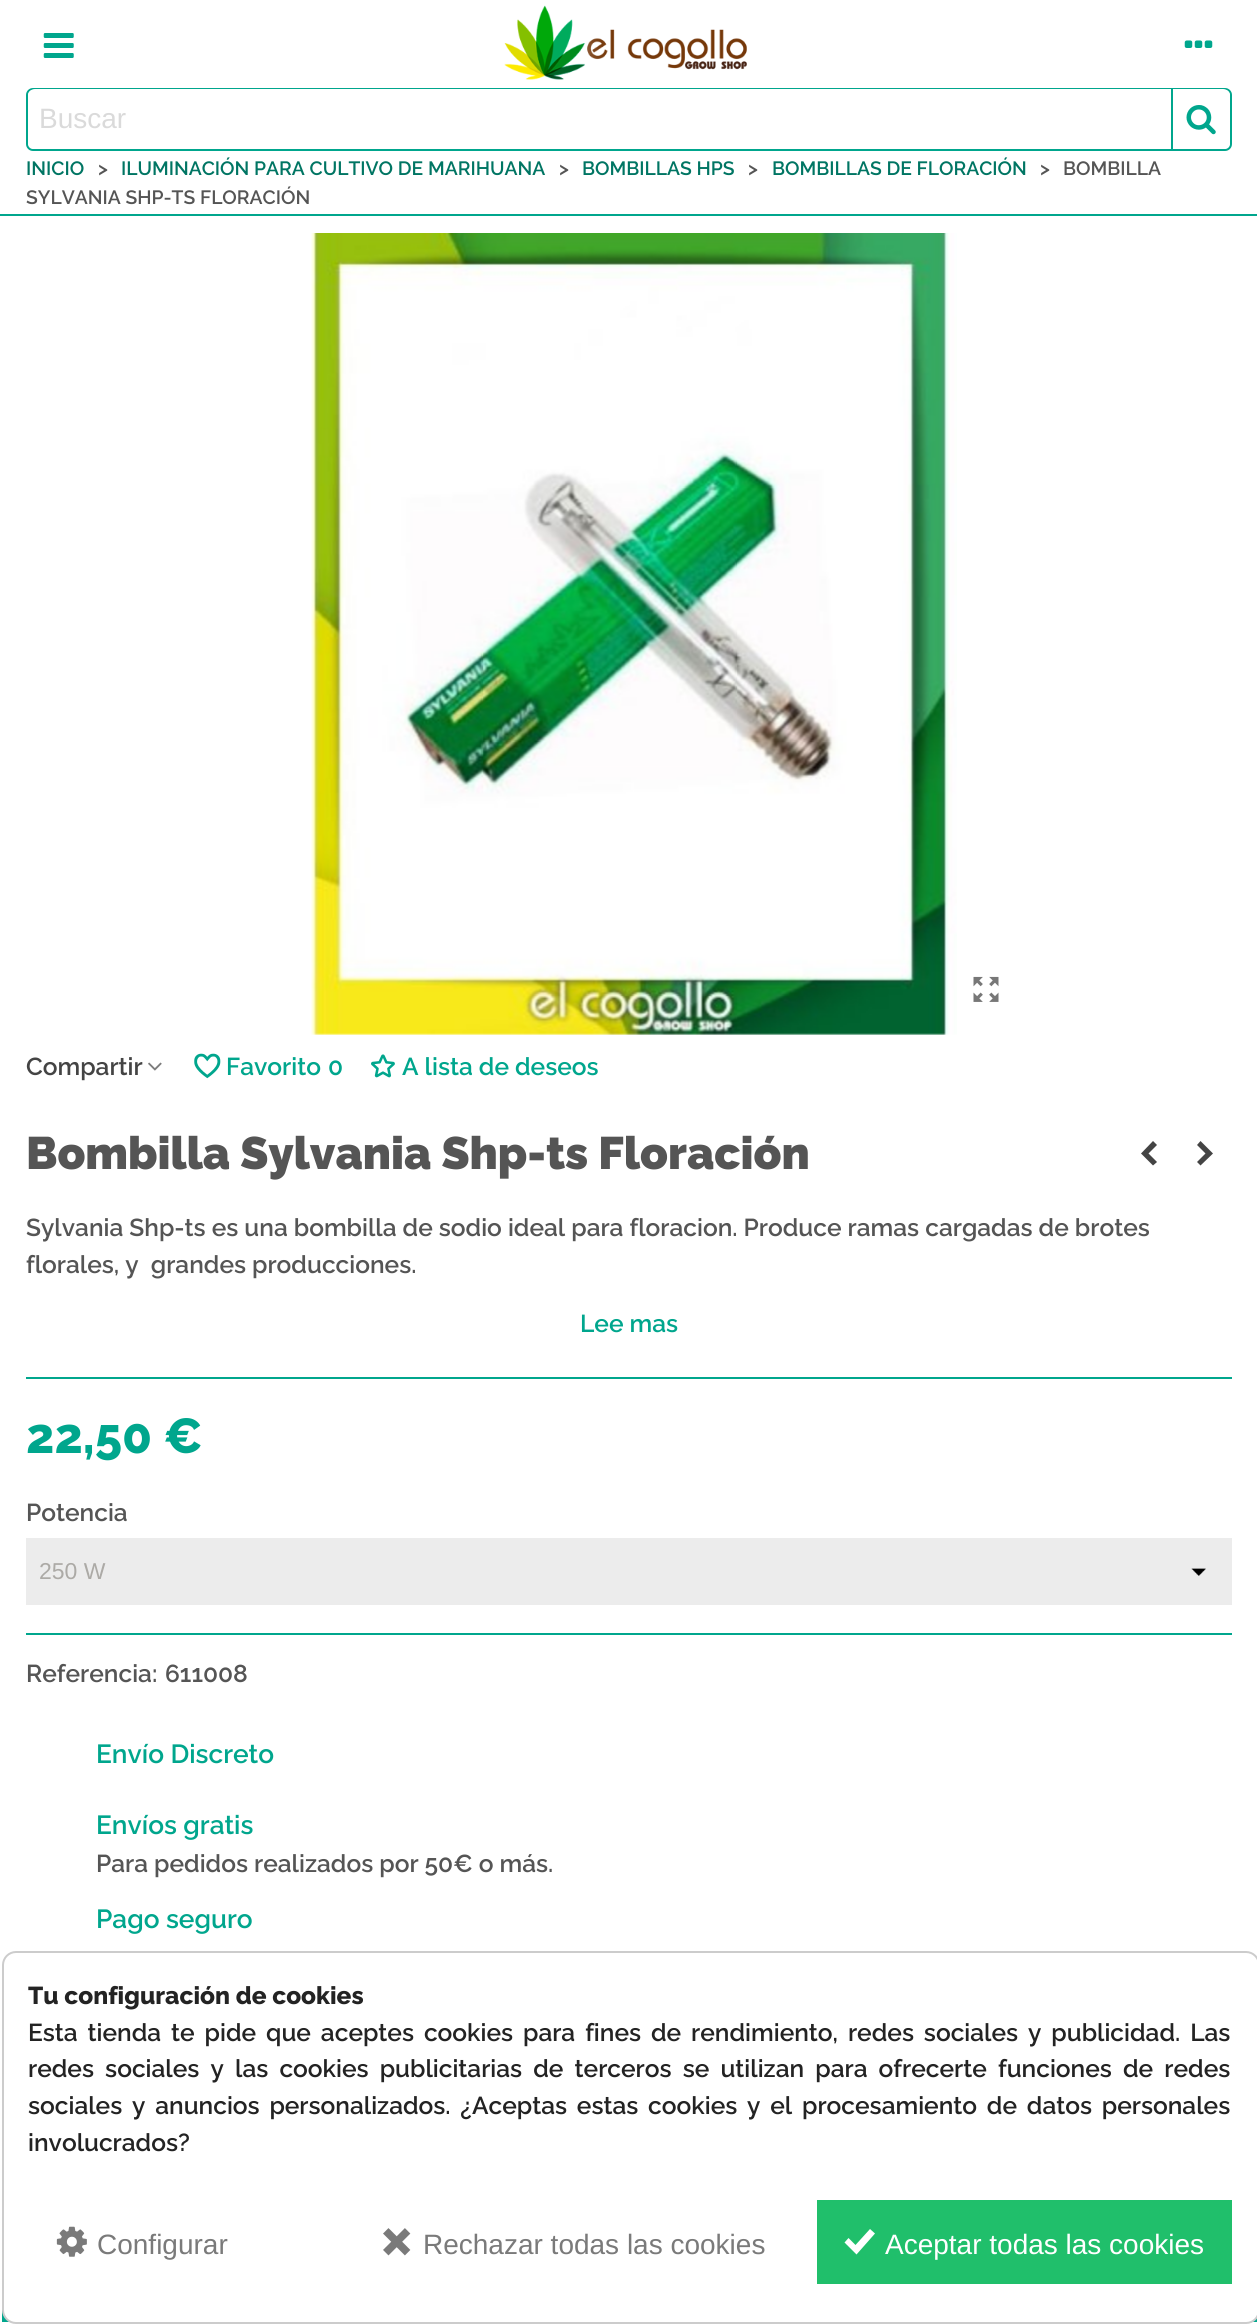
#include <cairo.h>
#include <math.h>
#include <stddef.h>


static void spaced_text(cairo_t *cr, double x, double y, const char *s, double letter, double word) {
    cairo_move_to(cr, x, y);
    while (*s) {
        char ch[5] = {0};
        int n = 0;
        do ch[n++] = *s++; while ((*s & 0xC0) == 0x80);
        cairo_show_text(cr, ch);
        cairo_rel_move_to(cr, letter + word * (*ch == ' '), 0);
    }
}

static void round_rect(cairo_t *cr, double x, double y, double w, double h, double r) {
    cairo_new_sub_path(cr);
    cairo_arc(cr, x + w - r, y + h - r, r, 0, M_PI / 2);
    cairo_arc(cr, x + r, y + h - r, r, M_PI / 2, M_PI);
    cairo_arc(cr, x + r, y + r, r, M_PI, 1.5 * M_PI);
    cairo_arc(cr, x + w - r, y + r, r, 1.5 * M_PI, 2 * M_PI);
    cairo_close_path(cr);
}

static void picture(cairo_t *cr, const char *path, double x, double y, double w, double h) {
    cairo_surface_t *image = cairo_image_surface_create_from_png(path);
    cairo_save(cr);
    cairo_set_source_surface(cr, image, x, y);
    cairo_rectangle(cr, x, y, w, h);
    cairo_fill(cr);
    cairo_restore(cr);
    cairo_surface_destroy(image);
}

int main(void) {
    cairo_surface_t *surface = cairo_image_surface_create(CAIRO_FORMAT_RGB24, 1257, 2324);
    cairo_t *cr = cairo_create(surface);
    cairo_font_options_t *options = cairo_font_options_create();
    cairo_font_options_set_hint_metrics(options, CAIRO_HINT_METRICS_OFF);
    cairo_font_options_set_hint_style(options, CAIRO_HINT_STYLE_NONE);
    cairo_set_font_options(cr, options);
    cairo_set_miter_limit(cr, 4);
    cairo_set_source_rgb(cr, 1, 1, 1);
    cairo_paint(cr);
    picture(cr, "img1.png", 43, 33, 31, 25);
    picture(cr, "img2.png", 504, 5, 243, 75);
    picture(cr, "img3.png", 1184, 40, 29, 8);
    round_rect(cr, 27, 89, 1204, 61, 6);
    cairo_set_source_rgb(cr, 0, 0.651, 0.553);
    cairo_stroke(cr);
    cairo_set_source_rgb(cr, 1, 1, 1);
    cairo_new_path(cr);
    cairo_move_to(cr, 35, 89);
    cairo_line_to(cr, 1171, 89);
    cairo_line_to(cr, 1171, 149);
    cairo_line_to(cr, 35, 149);
    cairo_curve_to(cr, 31, 149, 28, 146, 28, 142);
    cairo_line_to(cr, 28, 96);
    cairo_curve_to(cr, 28, 92, 31, 89, 35, 89);
    cairo_close_path(cr);
    cairo_fill(cr);
    cairo_select_font_face(cr, "Liberation Sans", CAIRO_FONT_SLANT_NORMAL, CAIRO_FONT_WEIGHT_NORMAL);
    cairo_set_font_size(cr, 28);
    cairo_set_source_rgb(cr, 0.855, 0.855, 0.855);
    cairo_move_to(cr, 39, 128);
    cairo_show_text(cr, "Buscar");
    cairo_set_source_rgb(cr, 1, 1, 1);
    cairo_new_path(cr);
    cairo_move_to(cr, 1171, 89);
    cairo_line_to(cr, 1223, 89);
    cairo_curve_to(cr, 1227, 89, 1230, 92, 1230, 96);
    cairo_line_to(cr, 1230, 142);
    cairo_curve_to(cr, 1230, 146, 1227, 149, 1223, 149);
    cairo_line_to(cr, 1171, 149);
    cairo_close_path(cr);
    cairo_fill(cr);
    cairo_set_source_rgb(cr, 0, 0.651, 0.553);
    cairo_rectangle(cr, 1171, 89, 2, 60);
    cairo_fill(cr);
    picture(cr, "img4.png", 1186, 105, 30, 30);
    cairo_rectangle(cr, 0, 214, 1257, 2);
    cairo_fill(cr);
    cairo_select_font_face(cr, "Raleway SemiBold", CAIRO_FONT_SLANT_NORMAL, CAIRO_FONT_WEIGHT_NORMAL);
    cairo_set_font_size(cr, 19.25);
    cairo_set_source_rgb(cr, 0, 0.459, 0.388);
    cairo_move_to(cr, 26, 175);
    cairo_show_text(cr, "INICIO");
    cairo_set_source_rgb(cr, 0.333, 0.333, 0.333);
    cairo_move_to(cr, 98, 175);
    cairo_show_text(cr, ">");
    cairo_set_source_rgb(cr, 0, 0.459, 0.388);
    cairo_move_to(cr, 121, 175);
    cairo_show_text(cr, "ILUMINACIÓN PARA CULTIVO DE MARIHUANA");
    cairo_set_source_rgb(cr, 0.333, 0.333, 0.333);
    cairo_move_to(cr, 559, 175);
    cairo_show_text(cr, ">");
    cairo_set_source_rgb(cr, 0, 0.459, 0.388);
    cairo_move_to(cr, 582, 175);
    cairo_show_text(cr, "BOMBILLAS HPS");
    cairo_set_source_rgb(cr, 0.333, 0.333, 0.333);
    cairo_move_to(cr, 748, 175);
    cairo_show_text(cr, ">");
    cairo_set_source_rgb(cr, 0, 0.459, 0.388);
    cairo_move_to(cr, 772, 175);
    cairo_show_text(cr, "BOMBILLAS DE FLORACIÓN");
    cairo_set_source_rgb(cr, 0.333, 0.333, 0.333);
    cairo_move_to(cr, 1040, 175);
    cairo_show_text(cr, ">");
    cairo_move_to(cr, 1063, 175);
    cairo_show_text(cr, "BOMBILLA");
    cairo_move_to(cr, 26, 204);
    cairo_show_text(cr, "SYLVANIA SHP-TS FLORACIÓN");
    picture(cr, "img5.png", 311, 233, 646, 802);
    picture(cr, "img6.png", 973, 976, 26, 26);
    cairo_set_font_size(cr, 24.5);
    cairo_set_source_rgb(cr, 0.267, 0.267, 0.267);
    cairo_move_to(cr, 26, 1075);
    cairo_show_text(cr, "Compartir");
    picture(cr, "img7.png", 148, 1062, 14, 9);
    picture(cr, "img8.png", 194, 1053, 27, 26);
    cairo_set_source_rgb(cr, 0, 0.651, 0.553);
    cairo_move_to(cr, 226, 1075);
    cairo_show_text(cr, "Favorito");
    cairo_move_to(cr, 328, 1075);
    cairo_show_text(cr, "0");
    picture(cr, "img9.png", 371, 1054, 24, 24);
    cairo_move_to(cr, 402, 1075);
    cairo_show_text(cr, "A lista de deseos");
    cairo_select_font_face(cr, "Raleway Black", CAIRO_FONT_SLANT_NORMAL, CAIRO_FONT_WEIGHT_NORMAL);
    cairo_set_font_size(cr, 45.5);
    cairo_set_source_rgb(cr, 0.333, 0.333, 0.333);
    cairo_move_to(cr, 26, 1169);
    cairo_show_text(cr, "Bombilla Sylvania Shp-ts Floración");
    cairo_set_source_rgb(cr, 0.267, 0.267, 0.267);
    cairo_new_path(cr);
    cairo_move_to(cr, 1141, 1153.5);
    cairo_line_to(cr, 1153, 1141);
    cairo_line_to(cr, 1157, 1145);
    cairo_line_to(cr, 1148.5, 1153.5);
    cairo_line_to(cr, 1157, 1162);
    cairo_line_to(cr, 1153, 1165.5);
    cairo_close_path(cr);
    cairo_fill(cr);
    cairo_new_path(cr);
    cairo_move_to(cr, 1197, 1162);
    cairo_line_to(cr, 1205.5, 1153.5);
    cairo_line_to(cr, 1197, 1145);
    cairo_line_to(cr, 1200.5, 1141);
    cairo_line_to(cr, 1213, 1153.5);
    cairo_line_to(cr, 1200.5, 1165.5);
    cairo_close_path(cr);
    cairo_fill(cr);
    cairo_select_font_face(cr, "Raleway SemiBold", CAIRO_FONT_SLANT_NORMAL, CAIRO_FONT_WEIGHT_NORMAL);
    cairo_set_font_size(cr, 24.5);
    cairo_set_source_rgb(cr, 0.333, 0.333, 0.333);
    cairo_move_to(cr, 26, 1236);
    cairo_show_text(cr, "Sylvania Shp-ts es una bombilla de sodio ideal para floracion. Produce ramas cargadas de brotes");
    cairo_move_to(cr, 26, 1273);
    cairo_show_text(cr, "florales, y  grandes producciones.");
    cairo_set_source_rgb(cr, 0, 0.651, 0.553);
    cairo_move_to(cr, 580, 1332);
    cairo_show_text(cr, "Lee mas");
    cairo_rectangle(cr, 26, 1377, 1206, 2);
    cairo_fill(cr);
    cairo_select_font_face(cr, "Raleway ExtraBold", CAIRO_FONT_SLANT_NORMAL, CAIRO_FONT_WEIGHT_NORMAL);
    cairo_set_font_size(cr, 49);
    cairo_move_to(cr, 26, 1453);
    cairo_show_text(cr, "22,50 €");
    cairo_select_font_face(cr, "Raleway SemiBold", CAIRO_FONT_SLANT_NORMAL, CAIRO_FONT_WEIGHT_NORMAL);
    cairo_set_font_size(cr, 24.5);
    cairo_set_source_rgb(cr, 0.333, 0.333, 0.333);
    cairo_move_to(cr, 26, 1521);
    cairo_show_text(cr, "Potencia");
    cairo_set_source_rgb(cr, 0.922, 0.922, 0.922);
    cairo_rectangle(cr, 26, 1538, 1206, 67);
    cairo_fill(cr);
    picture(cr, "img10.png", 1191, 1568, 15, 8);
    cairo_select_font_face(cr, "Liberation Sans", CAIRO_FONT_SLANT_NORMAL, CAIRO_FONT_WEIGHT_NORMAL);
    cairo_set_font_size(cr, 23);
    cairo_set_source_rgb(cr, 0.675, 0.667, 0.651);
    cairo_move_to(cr, 39, 1579);
    cairo_show_text(cr, "250 W");
    cairo_set_source_rgb(cr, 0, 0.651, 0.553);
    cairo_rectangle(cr, 26, 1633, 1206, 2);
    cairo_fill(cr);
    cairo_select_font_face(cr, "Raleway SemiBold", CAIRO_FONT_SLANT_NORMAL, CAIRO_FONT_WEIGHT_NORMAL);
    cairo_set_font_size(cr, 24.5);
    cairo_set_source_rgb(cr, 0.333, 0.333, 0.333);
    cairo_move_to(cr, 26, 1682);
    cairo_show_text(cr, "Referencia:");
    cairo_move_to(cr, 165, 1682);
    cairo_show_text(cr, "611008");
    cairo_set_font_size(cr, 26.25);
    cairo_set_source_rgb(cr, 0, 0.651, 0.553);
    cairo_move_to(cr, 96, 1763);
    cairo_show_text(cr, "Envío Discreto");
    cairo_move_to(cr, 96, 1834);
    cairo_show_text(cr, "Envíos gratis");
    cairo_set_font_size(cr, 24.5);
    cairo_set_source_rgb(cr, 0.333, 0.333, 0.333);
    cairo_move_to(cr, 96, 1872);
    cairo_show_text(cr, "Para pedidos realizados por 50€ o más.");
    cairo_set_font_size(cr, 26.25);
    cairo_set_source_rgb(cr, 0, 0.651, 0.553);
    cairo_move_to(cr, 96, 1928);
    cairo_show_text(cr, "Pago seguro");
    cairo_rectangle(cr, 2, 2310, 1255, 12);
    cairo_fill(cr);
    cairo_set_source_rgb(cr, 1, 1, 1);
    round_rect(cr, 3, 1952, 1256, 371, 13);
    cairo_fill_preserve(cr);
    cairo_set_source_rgb(cr, 0.8, 0.8, 0.8);
    cairo_stroke(cr);
    cairo_select_font_face(cr, "Raleway ExtraBold", CAIRO_FONT_SLANT_NORMAL, CAIRO_FONT_WEIGHT_NORMAL);
    cairo_set_font_size(cr, 24.5);
    cairo_set_source_rgb(cr, 0.137, 0.137, 0.137);
    cairo_move_to(cr, 28, 2004);
    cairo_show_text(cr, "Tu configuración de cookies");
    cairo_select_font_face(cr, "Raleway SemiBold", CAIRO_FONT_SLANT_NORMAL, CAIRO_FONT_WEIGHT_NORMAL);
    spaced_text(cr, 28, 2041, "Esta tienda te pide que aceptes cookies para fines de rendimiento, redes sociales y publicidad. Las", 0, 3.9);
    spaced_text(cr, 28, 2077, "redes sociales y las cookies publicitarias de terceros se utilizan para ofrecerte funciones de redes", 0, 5.1);
    spaced_text(cr, 28, 2114, "sociales y anuncios personalizados. ¿Aceptas estas cookies y el procesamiento de datos personales", 0, 3.75);
    cairo_move_to(cr, 28, 2151);
    cairo_show_text(cr, "involucrados?");
    picture(cr, "img11.png", 56, 2226, 31, 31);
    cairo_select_font_face(cr, "Liberation Sans", CAIRO_FONT_SLANT_NORMAL, CAIRO_FONT_WEIGHT_NORMAL);
    cairo_set_font_size(cr, 28);
    cairo_set_source_rgb(cr, 0.478, 0.478, 0.478);
    cairo_move_to(cr, 97, 2254);
    cairo_show_text(cr, "Configurar");
    picture(cr, "img12.png", 383, 2228, 28, 28);
    cairo_move_to(cr, 423, 2254);
    cairo_show_text(cr, "Rechazar todas las cookies");
    cairo_set_source_rgb(cr, 0.125, 0.749, 0.42);
    cairo_rectangle(cr, 817, 2200, 415, 84);
    cairo_fill(cr);
    cairo_set_source_rgb(cr, 1, 1, 1);
    cairo_new_path(cr);
    cairo_move_to(cr, 875, 2233.5);
    cairo_line_to(cr, 856.5, 2254.5);
    cairo_line_to(cr, 844.5, 2242.5);
    cairo_line_to(cr, 848.5, 2238);
    cairo_line_to(cr, 855.5, 2245);
    cairo_line_to(cr, 870, 2229);
    cairo_close_path(cr);
    cairo_fill(cr);
    cairo_move_to(cr, 885, 2254);
    cairo_show_text(cr, "Aceptar todas las cookies");
    cairo_surface_write_to_png(surface, "page.png");
    cairo_font_options_destroy(options);
    cairo_destroy(cr);
    cairo_surface_destroy(surface);
    return 0;
}
